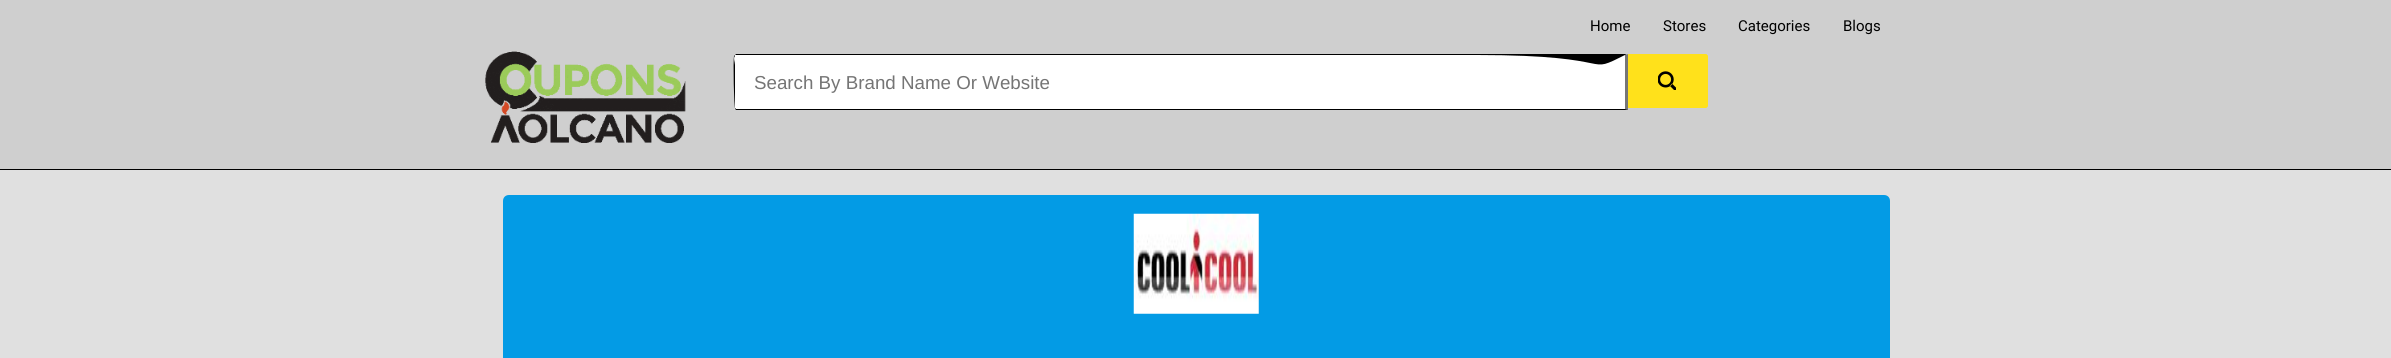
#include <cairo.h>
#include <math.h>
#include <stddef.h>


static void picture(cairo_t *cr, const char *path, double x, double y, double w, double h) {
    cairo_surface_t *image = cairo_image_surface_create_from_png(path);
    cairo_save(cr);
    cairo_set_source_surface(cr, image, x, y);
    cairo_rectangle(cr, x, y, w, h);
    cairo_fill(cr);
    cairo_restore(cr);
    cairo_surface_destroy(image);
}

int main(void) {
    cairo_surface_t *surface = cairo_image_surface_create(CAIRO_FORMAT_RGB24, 2391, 358);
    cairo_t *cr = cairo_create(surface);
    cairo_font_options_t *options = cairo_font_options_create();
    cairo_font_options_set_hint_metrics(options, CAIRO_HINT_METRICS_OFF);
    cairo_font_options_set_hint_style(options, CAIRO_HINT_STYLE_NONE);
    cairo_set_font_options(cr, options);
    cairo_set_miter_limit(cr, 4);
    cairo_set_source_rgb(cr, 0.878, 0.878, 0.878);
    cairo_paint(cr);
    cairo_set_source_rgb(cr, 0.812, 0.812, 0.812);
    cairo_rectangle(cr, 0, 0, 2391, 169);
    cairo_fill(cr);
    cairo_set_source_rgb(cr, 0, 0, 0);
    cairo_rectangle(cr, 0, 169, 2391, 1);
    cairo_fill(cr);
    cairo_select_font_face(cr, "Roboto", CAIRO_FONT_SLANT_NORMAL, CAIRO_FONT_WEIGHT_NORMAL);
    cairo_set_font_size(cr, 15);
    cairo_move_to(cr, 1590, 31);
    cairo_show_text(cr, "Home");
    cairo_move_to(cr, 1663, 31);
    cairo_show_text(cr, "Stores");
    cairo_move_to(cr, 1738, 31);
    cairo_show_text(cr, "Categories");
    cairo_move_to(cr, 1843, 31);
    cairo_show_text(cr, "Blogs");
    picture(cr, "img1.png", 485, 51, 201, 92);
    cairo_set_source_rgb(cr, 1, 1, 1);
    cairo_new_path(cr);
    cairo_move_to(cr, 736.5, 54);
    cairo_line_to(cr, 1628, 54);
    cairo_line_to(cr, 1628, 110);
    cairo_line_to(cr, 736.5, 110);
    cairo_curve_to(cr, 735, 110, 734, 109, 734, 107.5);
    cairo_line_to(cr, 734, 56.5);
    cairo_curve_to(cr, 734, 55, 735, 54, 736.5, 54);
    cairo_close_path(cr);
    cairo_fill(cr);
    cairo_set_source_rgb(cr, 0, 0, 0);
    cairo_new_path(cr);
    cairo_move_to(cr, 736, 54);
    cairo_line_to(cr, 735, 55);
    cairo_line_to(cr, 1477, 55);
    cairo_curve_to(cr, 1626, 55, 1581, 77, 1627, 54);
    cairo_close_path(cr);
    cairo_fill(cr);
    cairo_set_source_rgb(cr, 0.463, 0.463, 0.463);
    cairo_new_path(cr);
    cairo_move_to(cr, 1628, 54);
    cairo_line_to(cr, 1628, 110);
    cairo_line_to(cr, 1625, 109);
    cairo_line_to(cr, 1625, 55);
    cairo_close_path(cr);
    cairo_fill(cr);
    cairo_set_source_rgb(cr, 0, 0, 0);
    cairo_new_path(cr);
    cairo_move_to(cr, 1628, 110);
    cairo_line_to(cr, 1625, 109);
    cairo_line_to(cr, 736, 109);
    cairo_line_to(cr, 735, 108);
    cairo_line_to(cr, 735, 109);
    cairo_line_to(cr, 736, 110);
    cairo_close_path(cr);
    cairo_fill(cr);
    cairo_new_path(cr);
    cairo_move_to(cr, 735, 55);
    cairo_line_to(cr, 734, 56);
    cairo_curve_to(cr, 733, 60, 734, 108, 735, 109);
    cairo_line_to(cr, 735, 108);
    cairo_line_to(cr, 735, 65);
    cairo_curve_to(cr, 735, 62, 733, 58, 735, 56);
    cairo_close_path(cr);
    cairo_fill(cr);
    cairo_select_font_face(cr, "Liberation Sans", CAIRO_FONT_SLANT_NORMAL, CAIRO_FONT_WEIGHT_NORMAL);
    cairo_set_font_size(cr, 18.75);
    cairo_set_source_rgb(cr, 0.459, 0.459, 0.459);
    cairo_move_to(cr, 754, 89);
    cairo_show_text(cr, "Search By Brand Name Or Website");
    cairo_set_source_rgb(cr, 1, 0.882, 0.106);
    cairo_new_path(cr);
    cairo_move_to(cr, 1628.5, 54.5);
    cairo_line_to(cr, 1705.5, 54.5);
    cairo_curve_to(cr, 1706.5, 54.5, 1707.5, 55.5, 1707.5, 56.5);
    cairo_line_to(cr, 1707.5, 105.5);
    cairo_curve_to(cr, 1707.5, 106.5, 1706.5, 107.5, 1705.5, 107.5);
    cairo_line_to(cr, 1628.5, 107.5);
    cairo_close_path(cr);
    cairo_fill_preserve(cr);
    cairo_set_line_width(cr, 1);
    cairo_stroke(cr);
    picture(cr, "img2.png", 1658, 71, 18, 19);
    cairo_set_source_rgb(cr, 0.012, 0.608, 0.898);
    cairo_new_path(cr);
    cairo_move_to(cr, 509, 195);
    cairo_line_to(cr, 1884, 195);
    cairo_curve_to(cr, 1887.5, 195, 1890, 197.5, 1890, 201);
    cairo_line_to(cr, 1890, 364);
    cairo_line_to(cr, 503, 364);
    cairo_line_to(cr, 503, 201);
    cairo_curve_to(cr, 503, 197.5, 505.5, 195, 509, 195);
    cairo_close_path(cr);
    cairo_fill(cr);
    picture(cr, "img3.png", 1133, 213, 126, 101);
    cairo_surface_write_to_png(surface, "page.png");
    cairo_font_options_destroy(options);
    cairo_destroy(cr);
    cairo_surface_destroy(surface);
    return 0;
}
